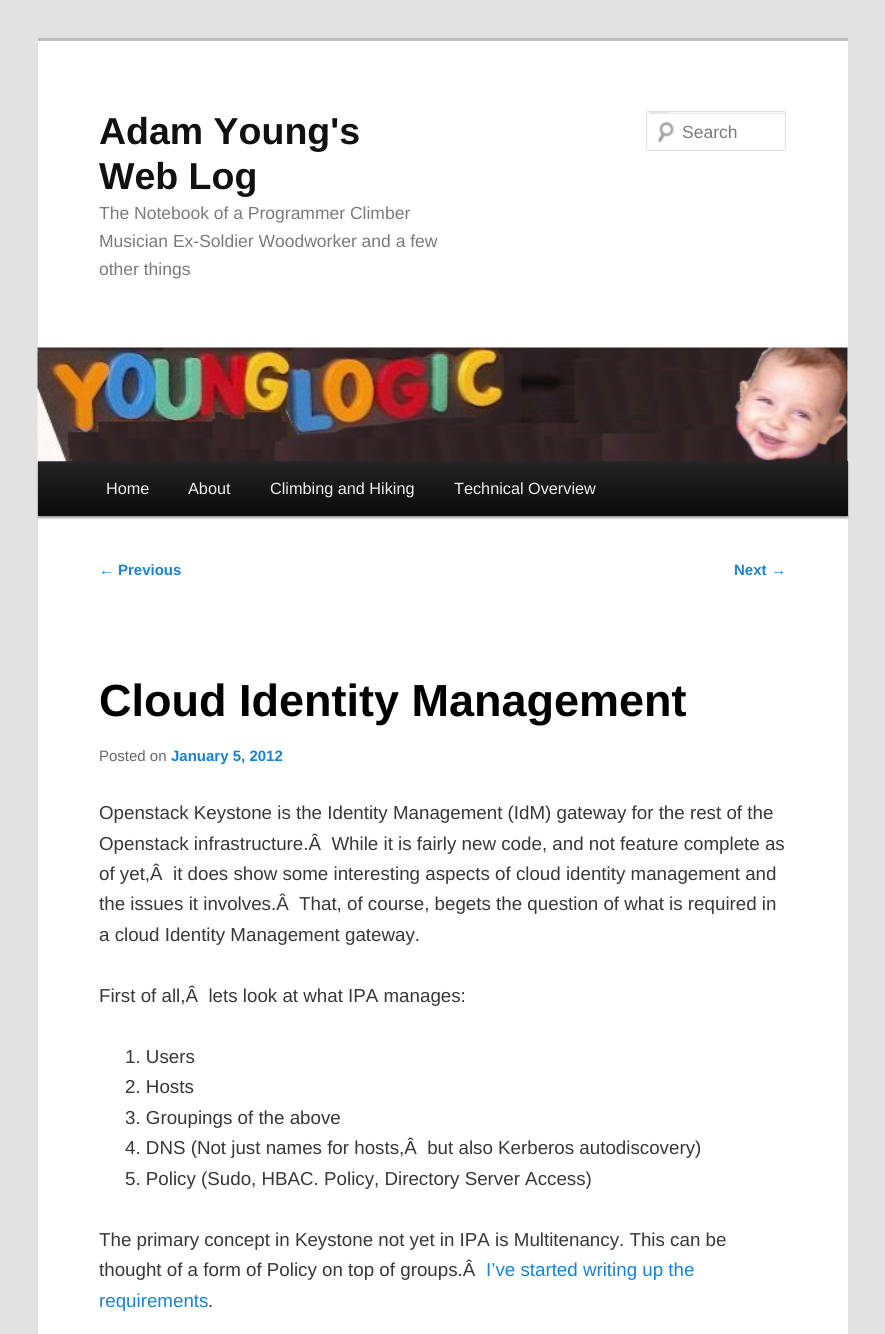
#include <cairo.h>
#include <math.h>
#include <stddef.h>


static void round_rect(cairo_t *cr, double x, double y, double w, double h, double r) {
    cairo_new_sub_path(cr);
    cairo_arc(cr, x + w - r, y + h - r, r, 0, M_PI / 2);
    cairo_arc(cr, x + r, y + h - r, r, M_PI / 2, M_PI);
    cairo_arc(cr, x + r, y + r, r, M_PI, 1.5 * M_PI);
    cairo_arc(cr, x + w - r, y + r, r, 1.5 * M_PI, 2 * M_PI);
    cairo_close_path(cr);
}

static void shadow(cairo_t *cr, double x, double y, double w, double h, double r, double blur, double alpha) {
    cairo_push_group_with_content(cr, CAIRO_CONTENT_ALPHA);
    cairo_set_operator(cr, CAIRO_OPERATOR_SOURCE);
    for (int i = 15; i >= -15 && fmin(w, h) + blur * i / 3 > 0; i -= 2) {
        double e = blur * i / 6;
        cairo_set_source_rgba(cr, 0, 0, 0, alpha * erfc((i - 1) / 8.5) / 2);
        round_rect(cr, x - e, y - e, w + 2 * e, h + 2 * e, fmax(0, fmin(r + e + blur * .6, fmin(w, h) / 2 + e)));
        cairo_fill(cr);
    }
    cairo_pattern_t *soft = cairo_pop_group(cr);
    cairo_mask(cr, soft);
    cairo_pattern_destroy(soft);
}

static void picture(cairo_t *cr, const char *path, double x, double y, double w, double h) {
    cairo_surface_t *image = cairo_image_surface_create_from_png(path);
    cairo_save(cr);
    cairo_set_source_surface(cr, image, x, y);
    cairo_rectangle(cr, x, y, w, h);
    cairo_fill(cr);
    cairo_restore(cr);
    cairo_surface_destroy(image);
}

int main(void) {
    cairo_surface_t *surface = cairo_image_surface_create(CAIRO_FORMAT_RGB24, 885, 1334);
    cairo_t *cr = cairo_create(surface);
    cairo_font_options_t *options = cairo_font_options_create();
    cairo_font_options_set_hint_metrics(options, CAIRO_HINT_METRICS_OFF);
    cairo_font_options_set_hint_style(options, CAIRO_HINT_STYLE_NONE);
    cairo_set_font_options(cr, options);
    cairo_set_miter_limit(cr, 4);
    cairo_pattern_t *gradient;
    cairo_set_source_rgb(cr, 0.886, 0.886, 0.886);
    cairo_paint(cr);
    cairo_set_source_rgb(cr, 1, 1, 1);
    cairo_rectangle(cr, 38, 41, 810, 1293);
    cairo_fill(cr);
    cairo_set_source_rgb(cr, 0.733, 0.733, 0.733);
    cairo_rectangle(cr, 38, 38, 810, 3);
    cairo_fill(cr);
    cairo_select_font_face(cr, "Liberation Sans", CAIRO_FONT_SLANT_NORMAL, CAIRO_FONT_WEIGHT_BOLD);
    cairo_set_font_size(cr, 37.5);
    cairo_set_source_rgb(cr, 0.067, 0.067, 0.067);
    cairo_move_to(cr, 99, 144);
    cairo_show_text(cr, "Adam Young's");
    cairo_move_to(cr, 99, 189);
    cairo_show_text(cr, "Web Log");
    cairo_select_font_face(cr, "Liberation Sans", CAIRO_FONT_SLANT_NORMAL, CAIRO_FONT_WEIGHT_NORMAL);
    cairo_set_font_size(cr, 17.5);
    cairo_set_source_rgb(cr, 0.478, 0.478, 0.478);
    cairo_move_to(cr, 99, 219);
    cairo_show_text(cr, "The Notebook of a Programmer Climber");
    cairo_move_to(cr, 99, 247);
    cairo_show_text(cr, "Musician Ex-Soldier Woodworker and a few");
    cairo_move_to(cr, 99, 275);
    cairo_show_text(cr, "other things");
    picture(cr, "img1.png", 657, 121, 17, 22);
    cairo_set_source_rgb(cr, 0.902, 0.902, 0.902);
    cairo_new_path(cr);
    cairo_move_to(cr, 649, 114);
    cairo_line_to(cr, 784, 114);
    cairo_line_to(cr, 785, 115);
    cairo_line_to(cr, 785, 113);
    cairo_line_to(cr, 672, 113);
    cairo_curve_to(cr, 671, 113, 648, 107, 648, 115);
    cairo_curve_to(cr, 648, 114, 648, 114, 649, 114);
    cairo_close_path(cr);
    cairo_fill(cr);
    round_rect(cr, 646.5, 111.5, 139, 39, 2);
    cairo_set_source_rgb(cr, 0.867, 0.867, 0.867);
    cairo_set_line_width(cr, 1);
    cairo_stroke(cr);
    cairo_set_source_rgb(cr, 0.478, 0.478, 0.478);
    cairo_move_to(cr, 682, 138);
    cairo_show_text(cr, "Search");
    cairo_set_source_rgb(cr, 0, 0, 0);
    shadow(cr, 38, 463, 810, 55, 0, 1, 0.4);
    gradient = cairo_pattern_create_linear(443, 461, 443, 516);
    cairo_pattern_add_color_stop_rgba(gradient, 0, 0.145, 0.145, 0.145, 1);
    cairo_pattern_add_color_stop_rgba(gradient, 1, 0.039, 0.039, 0.039, 1);
    cairo_set_source(cr, gradient);
    cairo_pattern_destroy(gradient);
    cairo_rectangle(cr, 38, 461, 810, 55);
    cairo_fill(cr);
    picture(cr, "img2.png", 37, 347, 811, 115);
    cairo_set_font_size(cr, 16.25);
    cairo_set_source_rgb(cr, 0.933, 0.933, 0.933);
    cairo_move_to(cr, 106, 494);
    cairo_show_text(cr, "Home");
    cairo_move_to(cr, 188, 494);
    cairo_show_text(cr, "About");
    cairo_move_to(cr, 270, 494);
    cairo_show_text(cr, "Climbing and Hiking");
    cairo_move_to(cr, 454, 494);
    cairo_show_text(cr, "Technical Overview");
    cairo_set_font_size(cr, 15);
    cairo_set_source_rgb(cr, 0.098, 0.51, 0.82);
    cairo_move_to(cr, 99, 575);
    cairo_show_text(cr, "←");
    cairo_select_font_face(cr, "Liberation Sans", CAIRO_FONT_SLANT_NORMAL, CAIRO_FONT_WEIGHT_BOLD);
    cairo_move_to(cr, 118, 575);
    cairo_show_text(cr, "Previous");
    cairo_move_to(cr, 734, 575);
    cairo_show_text(cr, "Next");
    cairo_select_font_face(cr, "Liberation Sans", CAIRO_FONT_SLANT_NORMAL, CAIRO_FONT_WEIGHT_NORMAL);
    cairo_move_to(cr, 771, 575);
    cairo_show_text(cr, "→");
    cairo_select_font_face(cr, "Liberation Sans", CAIRO_FONT_SLANT_NORMAL, CAIRO_FONT_WEIGHT_BOLD);
    cairo_set_font_size(cr, 45);
    cairo_set_source_rgb(cr, 0, 0, 0);
    cairo_move_to(cr, 99, 716);
    cairo_show_text(cr, "Cloud Identity Management");
    cairo_select_font_face(cr, "Liberation Sans", CAIRO_FONT_SLANT_NORMAL, CAIRO_FONT_WEIGHT_NORMAL);
    cairo_set_font_size(cr, 15);
    cairo_set_source_rgb(cr, 0.4, 0.4, 0.4);
    cairo_move_to(cr, 99, 761);
    cairo_show_text(cr, "Posted on");
    cairo_select_font_face(cr, "Liberation Sans", CAIRO_FONT_SLANT_NORMAL, CAIRO_FONT_WEIGHT_BOLD);
    cairo_set_source_rgb(cr, 0.098, 0.51, 0.82);
    cairo_move_to(cr, 171, 761);
    cairo_show_text(cr, "January 5, 2012");
    cairo_select_font_face(cr, "Liberation Sans", CAIRO_FONT_SLANT_NORMAL, CAIRO_FONT_WEIGHT_NORMAL);
    cairo_set_font_size(cr, 18.75);
    cairo_set_source_rgb(cr, 0.216, 0.216, 0.216);
    cairo_move_to(cr, 99, 819);
    cairo_show_text(cr, "Openstack Keystone is the Identity Management (IdM) gateway for the rest of the");
    cairo_move_to(cr, 99, 850);
    cairo_show_text(cr, "Openstack infrastructure.Â  While it is fairly new code, and not feature complete as");
    cairo_move_to(cr, 99, 880);
    cairo_show_text(cr, "of yet,Â  it does show some interesting aspects of cloud identity management and");
    cairo_move_to(cr, 99, 910);
    cairo_show_text(cr, "the issues it involves.Â  That, of course, begets the question of what is required in");
    cairo_move_to(cr, 99, 941);
    cairo_show_text(cr, "a cloud Identity Management gateway.");
    cairo_move_to(cr, 99, 1002);
    cairo_show_text(cr, "First of all,Â  lets look at what IPA manages:");
    cairo_move_to(cr, 125, 1063);
    cairo_show_text(cr, "1. Users");
    cairo_move_to(cr, 125, 1093);
    cairo_show_text(cr, "2. Hosts");
    cairo_move_to(cr, 125, 1124);
    cairo_show_text(cr, "3. Groupings of the above");
    cairo_move_to(cr, 125, 1154);
    cairo_show_text(cr, "4. DNS (Not just names for hosts,Â  but also Kerberos autodiscovery)");
    cairo_move_to(cr, 125, 1185);
    cairo_show_text(cr, "5. Policy (Sudo, HBAC. Policy, Directory Server Access)");
    cairo_move_to(cr, 99, 1246);
    cairo_show_text(cr, "The primary concept in Keystone not yet in IPA is Multitenancy. This can be");
    cairo_move_to(cr, 99, 1276);
    cairo_show_text(cr, "thought of a form of Policy on top of groups.Â");
    cairo_set_source_rgb(cr, 0.098, 0.51, 0.82);
    cairo_move_to(cr, 486, 1276);
    cairo_show_text(cr, "I’ve started writing up the");
    cairo_move_to(cr, 99, 1307);
    cairo_show_text(cr, "requirements");
    cairo_set_source_rgb(cr, 0.216, 0.216, 0.216);
    cairo_move_to(cr, 208, 1307);
    cairo_show_text(cr, ".");
    cairo_surface_write_to_png(surface, "page.png");
    cairo_font_options_destroy(options);
    cairo_destroy(cr);
    cairo_surface_destroy(surface);
    return 0;
}
